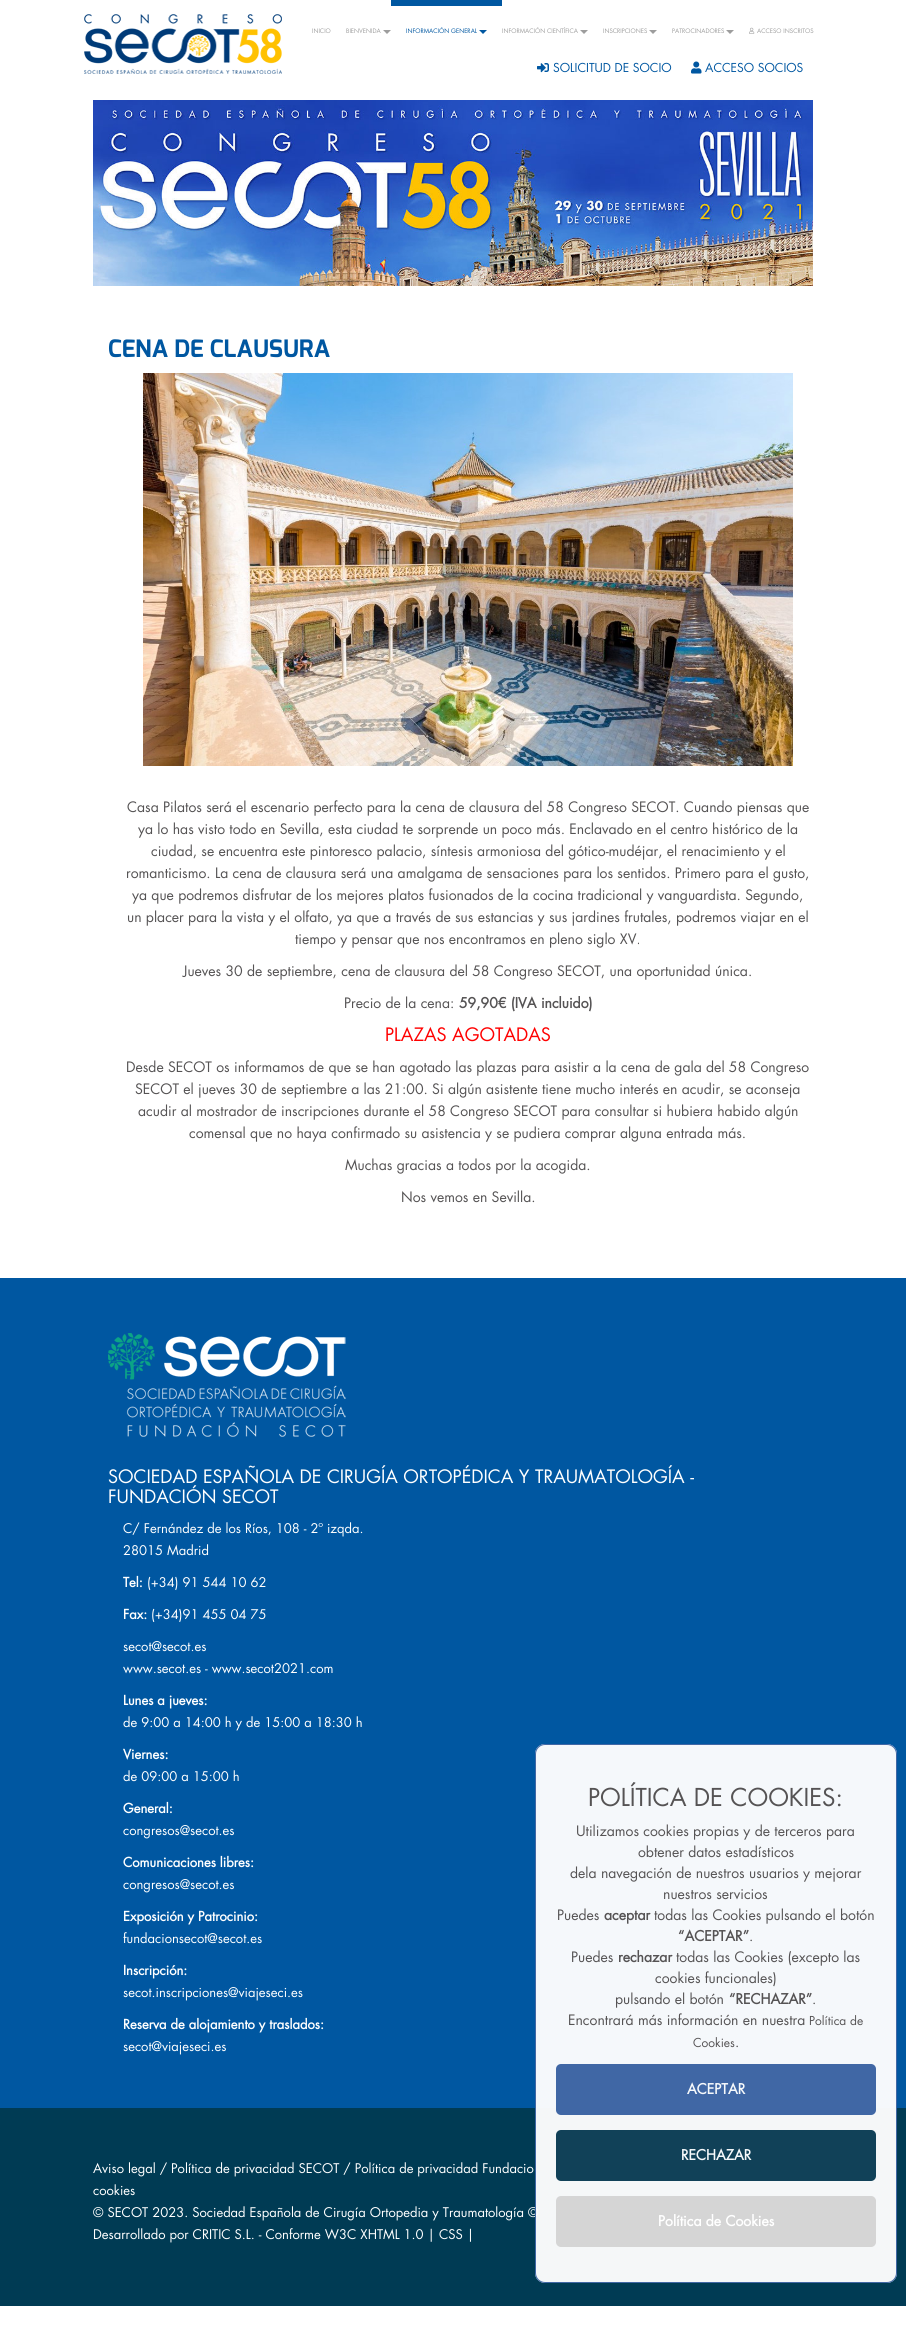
#include <cairo.h>
#include <math.h>
#include <stddef.h>


static void round_rect(cairo_t *cr, double x, double y, double w, double h, double r) {
    cairo_new_sub_path(cr);
    cairo_arc(cr, x + w - r, y + h - r, r, 0, M_PI / 2);
    cairo_arc(cr, x + r, y + h - r, r, M_PI / 2, M_PI);
    cairo_arc(cr, x + r, y + r, r, M_PI, 1.5 * M_PI);
    cairo_arc(cr, x + w - r, y + r, r, 1.5 * M_PI, 2 * M_PI);
    cairo_close_path(cr);
}

static void picture(cairo_t *cr, const char *path, double x, double y, double w, double h) {
    cairo_surface_t *image = cairo_image_surface_create_from_png(path);
    cairo_save(cr);
    cairo_set_source_surface(cr, image, x, y);
    cairo_rectangle(cr, x, y, w, h);
    cairo_fill(cr);
    cairo_restore(cr);
    cairo_surface_destroy(image);
}

int main(void) {
    cairo_surface_t *surface = cairo_image_surface_create(CAIRO_FORMAT_RGB24, 906, 2330);
    cairo_t *cr = cairo_create(surface);
    cairo_font_options_t *options = cairo_font_options_create();
    cairo_font_options_set_hint_metrics(options, CAIRO_HINT_METRICS_OFF);
    cairo_font_options_set_hint_style(options, CAIRO_HINT_STYLE_NONE);
    cairo_set_font_options(cr, options);
    cairo_set_miter_limit(cr, 4);
    cairo_set_source_rgb(cr, 1, 1, 1);
    cairo_paint(cr);
    picture(cr, "img1.png", 84, 14, 198, 60);
    cairo_select_font_face(cr, "Futura", CAIRO_FONT_SLANT_NORMAL, CAIRO_FONT_WEIGHT_NORMAL);
    cairo_set_font_size(cr, 6);
    cairo_set_source_rgb(cr, 0.616, 0.616, 0.616);
    cairo_move_to(cr, 312, 33);
    cairo_show_text(cr, "INICIO");
    cairo_move_to(cr, 346, 33);
    cairo_show_text(cr, "BIENVENIDA");
    cairo_new_path(cr);
    cairo_move_to(cr, 383, 30);
    cairo_line_to(cr, 391, 30);
    cairo_line_to(cr, 387, 34);
    cairo_close_path(cr);
    cairo_fill(cr);
    cairo_set_source_rgb(cr, 0, 0.341, 0.631);
    cairo_rectangle(cr, 391, 0, 111, 6);
    cairo_fill(cr);
    cairo_move_to(cr, 406, 33);
    cairo_show_text(cr, "INFORMACIÓN GENERAL");
    cairo_new_path(cr);
    cairo_move_to(cr, 479, 30);
    cairo_line_to(cr, 487, 30);
    cairo_line_to(cr, 483, 34);
    cairo_close_path(cr);
    cairo_fill(cr);
    cairo_set_source_rgb(cr, 0.616, 0.616, 0.616);
    cairo_move_to(cr, 502, 33);
    cairo_show_text(cr, "INFORMACIÓN CIENTÍFICA");
    cairo_new_path(cr);
    cairo_move_to(cr, 580, 30);
    cairo_line_to(cr, 588, 30);
    cairo_line_to(cr, 584, 34);
    cairo_close_path(cr);
    cairo_fill(cr);
    cairo_move_to(cr, 603, 33);
    cairo_show_text(cr, "INSCRIPCIONES");
    cairo_new_path(cr);
    cairo_move_to(cr, 649, 30);
    cairo_line_to(cr, 657, 30);
    cairo_line_to(cr, 653, 34);
    cairo_close_path(cr);
    cairo_fill(cr);
    cairo_move_to(cr, 672, 33);
    cairo_show_text(cr, "PATROCINADORES");
    cairo_new_path(cr);
    cairo_move_to(cr, 726, 30);
    cairo_line_to(cr, 734, 30);
    cairo_line_to(cr, 730, 34);
    cairo_close_path(cr);
    cairo_fill(cr);
    picture(cr, "img2.png", 749, 27, 6, 7);
    cairo_move_to(cr, 757, 33);
    cairo_show_text(cr, "ACCESO INSCRITOS");
    picture(cr, "img3.png", 537, 63, 12, 10);
    cairo_set_font_size(cr, 12);
    cairo_set_source_rgb(cr, 0, 0.341, 0.631);
    cairo_move_to(cr, 553, 72);
    cairo_show_text(cr, "SOLICITUD DE SOCIO");
    picture(cr, "img4.png", 691, 61, 11, 13);
    cairo_move_to(cr, 705, 72);
    cairo_show_text(cr, "ACCESO SOCIOS");
    picture(cr, "img5.png", 93, 100, 720, 186);
    cairo_select_font_face(cr, "Exo", CAIRO_FONT_SLANT_NORMAL, CAIRO_FONT_WEIGHT_BOLD);
    cairo_set_font_size(cr, 24);
    cairo_move_to(cr, 108, 357);
    cairo_show_text(cr, "CENA DE CLAUSURA");
    picture(cr, "img6.png", 143, 373, 650, 393);
    cairo_select_font_face(cr, "Futura", CAIRO_FONT_SLANT_NORMAL, CAIRO_FONT_WEIGHT_NORMAL);
    cairo_set_font_size(cr, 14);
    cairo_set_source_rgb(cr, 0.333, 0.325, 0.329);
    cairo_move_to(cr, 127, 812);
    cairo_show_text(cr, "Casa Pilatos será el escenario perfecto para la cena de clausura del 58 Congreso SECOT. Cuando piensas que");
    cairo_move_to(cr, 138, 834);
    cairo_show_text(cr, "ya lo has visto todo en Sevilla, esta ciudad te sorprende un poco más. Enclavado en el centro histórico de la");
    cairo_move_to(cr, 151, 856);
    cairo_show_text(cr, "ciudad, se encuentra este pintoresco palacio, síntesis armoniosa del gótico-mudéjar, el renacimiento y el");
    cairo_move_to(cr, 126, 878);
    cairo_show_text(cr, "romanticismo. La cena de clausura será una amalgama de sensaciones para los sentidos. Primero para el gusto,");
    cairo_move_to(cr, 132, 900);
    cairo_show_text(cr, "ya que podremos disfrutar de los mejores platos fusionados de la cocina tradicional y vanguardista. Segundo,");
    cairo_move_to(cr, 127, 922);
    cairo_show_text(cr, "un placer para la vista y el olfato, ya que a través de sus estancias y sus jardines frutales, podremos viajar en el");
    cairo_move_to(cr, 295, 944);
    cairo_show_text(cr, "tiempo y pensar que nos encontramos en pleno siglo XV.");
    cairo_move_to(cr, 183, 976);
    cairo_show_text(cr, "Jueves 30 de septiembre, cena de clausura del 58 Congreso SECOT, una oportunidad única.");
    cairo_move_to(cr, 344, 1008);
    cairo_show_text(cr, "Precio de la cena:");
    cairo_select_font_face(cr, "Futura", CAIRO_FONT_SLANT_NORMAL, CAIRO_FONT_WEIGHT_BOLD);
    cairo_move_to(cr, 459, 1008);
    cairo_show_text(cr, "59,90€ (IVA incluido)");
    cairo_select_font_face(cr, "Futura", CAIRO_FONT_SLANT_NORMAL, CAIRO_FONT_WEIGHT_NORMAL);
    cairo_set_font_size(cr, 18);
    cairo_set_source_rgb(cr, 1, 0, 0);
    cairo_move_to(cr, 385, 1041);
    cairo_show_text(cr, "PLAZAS AGOTADAS");
    cairo_set_font_size(cr, 14);
    cairo_set_source_rgb(cr, 0.333, 0.325, 0.329);
    cairo_move_to(cr, 126, 1072);
    cairo_show_text(cr, "Desde SECOT os informamos de que se han agotado las plazas para asistir a la cena de gala del 58 Congreso");
    cairo_move_to(cr, 135, 1094);
    cairo_show_text(cr, "SECOT el jueves 30 de septiembre a las 21:00. Si algún asistente tiene mucho interés en acudir, se aconseja");
    cairo_move_to(cr, 138, 1116);
    cairo_show_text(cr, "acudir al mostrador de inscripciones durante el 58 Congreso SECOT para consultar si hubiera habido algún");
    cairo_move_to(cr, 189, 1138);
    cairo_show_text(cr, "comensal que no haya confirmado su asistencia y se pudiera comprar alguna entrada más.");
    cairo_move_to(cr, 345, 1170);
    cairo_show_text(cr, "Muchas gracias a todos por la acogida.");
    cairo_move_to(cr, 401, 1202);
    cairo_show_text(cr, "Nos vemos en Sevilla.");
    cairo_set_source_rgb(cr, 0, 0.341, 0.631);
    cairo_rectangle(cr, 0, 1278, 906, 830);
    cairo_fill(cr);
    picture(cr, "img7.png", 108, 1333, 238, 104);
    cairo_set_font_size(cr, 18);
    cairo_set_source_rgb(cr, 1, 1, 1);
    cairo_move_to(cr, 108, 1483);
    cairo_show_text(cr, "SOCIEDAD ESPAÑOLA DE CIRUGÍA ORTOPÉDICA Y TRAUMATOLOGÍA -");
    cairo_move_to(cr, 108, 1503);
    cairo_show_text(cr, "FUNDACIÓN SECOT");
    cairo_set_font_size(cr, 13);
    cairo_move_to(cr, 123, 1533);
    cairo_show_text(cr, "C/ Fernández de los Ríos, 108 - 2º izqda.");
    cairo_move_to(cr, 123, 1555);
    cairo_show_text(cr, "28015 Madrid");
    cairo_select_font_face(cr, "Futura", CAIRO_FONT_SLANT_NORMAL, CAIRO_FONT_WEIGHT_BOLD);
    cairo_move_to(cr, 123, 1587);
    cairo_show_text(cr, "Tel:");
    cairo_select_font_face(cr, "Futura", CAIRO_FONT_SLANT_NORMAL, CAIRO_FONT_WEIGHT_NORMAL);
    cairo_move_to(cr, 147, 1587);
    cairo_show_text(cr, "(+34) 91 544 10 62");
    cairo_select_font_face(cr, "Futura", CAIRO_FONT_SLANT_NORMAL, CAIRO_FONT_WEIGHT_BOLD);
    cairo_move_to(cr, 123, 1619);
    cairo_show_text(cr, "Fax:");
    cairo_select_font_face(cr, "Futura", CAIRO_FONT_SLANT_NORMAL, CAIRO_FONT_WEIGHT_NORMAL);
    cairo_move_to(cr, 151, 1619);
    cairo_show_text(cr, "(+34)91 455 04 75");
    cairo_move_to(cr, 123, 1651);
    cairo_show_text(cr, "secot@secot.es");
    cairo_move_to(cr, 123, 1673);
    cairo_show_text(cr, "www.secot.es - www.secot2021.com");
    cairo_select_font_face(cr, "Futura", CAIRO_FONT_SLANT_NORMAL, CAIRO_FONT_WEIGHT_BOLD);
    cairo_move_to(cr, 123, 1705);
    cairo_show_text(cr, "Lunes a jueves:");
    cairo_select_font_face(cr, "Futura", CAIRO_FONT_SLANT_NORMAL, CAIRO_FONT_WEIGHT_NORMAL);
    cairo_move_to(cr, 123, 1727);
    cairo_show_text(cr, "de 9:00 a 14:00 h y de 15:00 a 18:30 h");
    cairo_select_font_face(cr, "Futura", CAIRO_FONT_SLANT_NORMAL, CAIRO_FONT_WEIGHT_BOLD);
    cairo_move_to(cr, 123, 1759);
    cairo_show_text(cr, "Viernes:");
    cairo_select_font_face(cr, "Futura", CAIRO_FONT_SLANT_NORMAL, CAIRO_FONT_WEIGHT_NORMAL);
    cairo_move_to(cr, 123, 1781);
    cairo_show_text(cr, "de 09:00 a 15:00 h");
    cairo_select_font_face(cr, "Futura", CAIRO_FONT_SLANT_NORMAL, CAIRO_FONT_WEIGHT_BOLD);
    cairo_move_to(cr, 123, 1813);
    cairo_show_text(cr, "General:");
    cairo_select_font_face(cr, "Futura", CAIRO_FONT_SLANT_NORMAL, CAIRO_FONT_WEIGHT_NORMAL);
    cairo_move_to(cr, 123, 1835);
    cairo_show_text(cr, "congresos@secot.es");
    cairo_select_font_face(cr, "Futura", CAIRO_FONT_SLANT_NORMAL, CAIRO_FONT_WEIGHT_BOLD);
    cairo_move_to(cr, 123, 1867);
    cairo_show_text(cr, "Comunicaciones libres:");
    cairo_select_font_face(cr, "Futura", CAIRO_FONT_SLANT_NORMAL, CAIRO_FONT_WEIGHT_NORMAL);
    cairo_move_to(cr, 123, 1889);
    cairo_show_text(cr, "congresos@secot.es");
    cairo_select_font_face(cr, "Futura", CAIRO_FONT_SLANT_NORMAL, CAIRO_FONT_WEIGHT_BOLD);
    cairo_move_to(cr, 123, 1921);
    cairo_show_text(cr, "Exposición y Patrocinio:");
    cairo_select_font_face(cr, "Futura", CAIRO_FONT_SLANT_NORMAL, CAIRO_FONT_WEIGHT_NORMAL);
    cairo_move_to(cr, 123, 1943);
    cairo_show_text(cr, "fundacionsecot@secot.es");
    cairo_select_font_face(cr, "Futura", CAIRO_FONT_SLANT_NORMAL, CAIRO_FONT_WEIGHT_BOLD);
    cairo_move_to(cr, 123, 1975);
    cairo_show_text(cr, "Inscripción:");
    cairo_select_font_face(cr, "Futura", CAIRO_FONT_SLANT_NORMAL, CAIRO_FONT_WEIGHT_NORMAL);
    cairo_move_to(cr, 123, 1997);
    cairo_show_text(cr, "secot.inscripciones@viajeseci.es");
    cairo_select_font_face(cr, "Futura", CAIRO_FONT_SLANT_NORMAL, CAIRO_FONT_WEIGHT_BOLD);
    cairo_move_to(cr, 123, 2029);
    cairo_show_text(cr, "Reserva de alojamiento y traslados:");
    cairo_select_font_face(cr, "Futura", CAIRO_FONT_SLANT_NORMAL, CAIRO_FONT_WEIGHT_NORMAL);
    cairo_move_to(cr, 123, 2051);
    cairo_show_text(cr, "secot@viajeseci.es");
    cairo_set_source_rgb(cr, 0, 0.231, 0.329);
    cairo_rectangle(cr, 0, 2108, 906, 198);
    cairo_fill(cr);
    cairo_set_source_rgb(cr, 1, 1, 1);
    cairo_move_to(cr, 93, 2217);
    cairo_show_text(cr, "© SECOT 2023. Sociedad Española de Cirugía Ortopedia y Traumatología ©");
    cairo_set_source_rgba(cr, 1, 1, 1, 0.96);
    round_rect(cr, 535, 1744, 362, 539, 10);
    cairo_fill(cr);
    round_rect(cr, 535.5, 1744.5, 361, 538, 9.5);
    cairo_set_source_rgba(cr, 0.22, 0.38, 0.631, 0.96);
    cairo_set_line_width(cr, 1);
    cairo_stroke(cr);
    cairo_set_font_size(cr, 24);
    cairo_set_source_rgb(cr, 0.333, 0.325, 0.329);
    cairo_move_to(cr, 588, 1806);
    cairo_show_text(cr, "POLÍTICA DE COOKIES:");
    cairo_set_font_size(cr, 14);
    cairo_move_to(cr, 576, 1836);
    cairo_show_text(cr, "Utilizamos cookies propias y de terceros para");
    cairo_move_to(cr, 638, 1857);
    cairo_show_text(cr, "obtener datos estadísticos");
    cairo_move_to(cr, 570, 1878);
    cairo_show_text(cr, "dela navegación de nuestros usuarios y mejorar");
    cairo_move_to(cr, 663, 1899);
    cairo_show_text(cr, "nuestros servicios");
    cairo_move_to(cr, 557, 1920);
    cairo_show_text(cr, "Puedes");
    cairo_select_font_face(cr, "Futura", CAIRO_FONT_SLANT_NORMAL, CAIRO_FONT_WEIGHT_BOLD);
    cairo_move_to(cr, 604, 1920);
    cairo_show_text(cr, "aceptar");
    cairo_select_font_face(cr, "Futura", CAIRO_FONT_SLANT_NORMAL, CAIRO_FONT_WEIGHT_NORMAL);
    cairo_move_to(cr, 654, 1920);
    cairo_show_text(cr, "todas las Cookies pulsando el botón");
    cairo_select_font_face(cr, "Futura", CAIRO_FONT_SLANT_NORMAL, CAIRO_FONT_WEIGHT_BOLD);
    cairo_move_to(cr, 678, 1941);
    cairo_show_text(cr, "“ACEPTAR”");
    cairo_select_font_face(cr, "Futura", CAIRO_FONT_SLANT_NORMAL, CAIRO_FONT_WEIGHT_NORMAL);
    cairo_move_to(cr, 749, 1941);
    cairo_show_text(cr, ".");
    cairo_move_to(cr, 571, 1962);
    cairo_show_text(cr, "Puedes");
    cairo_select_font_face(cr, "Futura", CAIRO_FONT_SLANT_NORMAL, CAIRO_FONT_WEIGHT_BOLD);
    cairo_move_to(cr, 618, 1962);
    cairo_show_text(cr, "rechazar");
    cairo_select_font_face(cr, "Futura", CAIRO_FONT_SLANT_NORMAL, CAIRO_FONT_WEIGHT_NORMAL);
    cairo_move_to(cr, 676, 1962);
    cairo_show_text(cr, "todas las Cookies (excepto las");
    cairo_move_to(cr, 655, 1983);
    cairo_show_text(cr, "cookies funcionales)");
    cairo_move_to(cr, 615, 2004);
    cairo_show_text(cr, "pulsando el botón");
    cairo_select_font_face(cr, "Futura", CAIRO_FONT_SLANT_NORMAL, CAIRO_FONT_WEIGHT_BOLD);
    cairo_move_to(cr, 729, 2004);
    cairo_show_text(cr, "“RECHAZAR”");
    cairo_select_font_face(cr, "Futura", CAIRO_FONT_SLANT_NORMAL, CAIRO_FONT_WEIGHT_NORMAL);
    cairo_move_to(cr, 812, 2004);
    cairo_show_text(cr, ".");
    cairo_move_to(cr, 568, 2025);
    cairo_show_text(cr, "Encontrará más información en nuestra");
    cairo_set_font_size(cr, 12);
    cairo_move_to(cr, 809, 2025);
    cairo_show_text(cr, "Política de");
    cairo_move_to(cr, 693, 2047);
    cairo_show_text(cr, "Cookies");
    cairo_set_font_size(cr, 14);
    cairo_move_to(cr, 735, 2047);
    cairo_show_text(cr, ".");
    cairo_set_source_rgba(cr, 0.22, 0.38, 0.631, 0.96);
    round_rect(cr, 556, 2064, 320, 51, 5);
    cairo_fill(cr);
    cairo_select_font_face(cr, "Futura", CAIRO_FONT_SLANT_NORMAL, CAIRO_FONT_WEIGHT_BOLD);
    cairo_set_source_rgb(cr, 0.961, 0.973, 0.984);
    cairo_move_to(cr, 687, 2094);
    cairo_show_text(cr, "ACEPTAR");
    cairo_set_source_rgba(cr, 0.031, 0.224, 0.318, 0.96);
    round_rect(cr, 556, 2130, 320, 51, 5);
    cairo_fill(cr);
    cairo_set_source_rgb(cr, 0.961, 0.973, 0.984);
    cairo_move_to(cr, 681, 2160);
    cairo_show_text(cr, "RECHAZAR");
    cairo_set_source_rgba(cr, 0.827, 0.827, 0.827, 0.96);
    round_rect(cr, 556, 2196, 320, 51, 5);
    cairo_fill(cr);
    cairo_set_source_rgb(cr, 1, 1, 1);
    cairo_move_to(cr, 658, 2226);
    cairo_show_text(cr, "Política de Cookies");
    cairo_select_font_face(cr, "Futura", CAIRO_FONT_SLANT_NORMAL, CAIRO_FONT_WEIGHT_NORMAL);
    cairo_set_font_size(cr, 13);
    cairo_move_to(cr, 93, 2173);
    cairo_show_text(cr, "Aviso legal / Política de privacidad SECOT / Política de privacidad Fundacio");
    cairo_move_to(cr, 93, 2195);
    cairo_show_text(cr, "cookies");
    cairo_move_to(cr, 93, 2239);
    cairo_show_text(cr, "Desarrollado por CRITIC S.L. - Conforme W3C XHTML 1.0 | CSS |");
    cairo_surface_write_to_png(surface, "page.png");
    cairo_font_options_destroy(options);
    cairo_destroy(cr);
    cairo_surface_destroy(surface);
    return 0;
}
